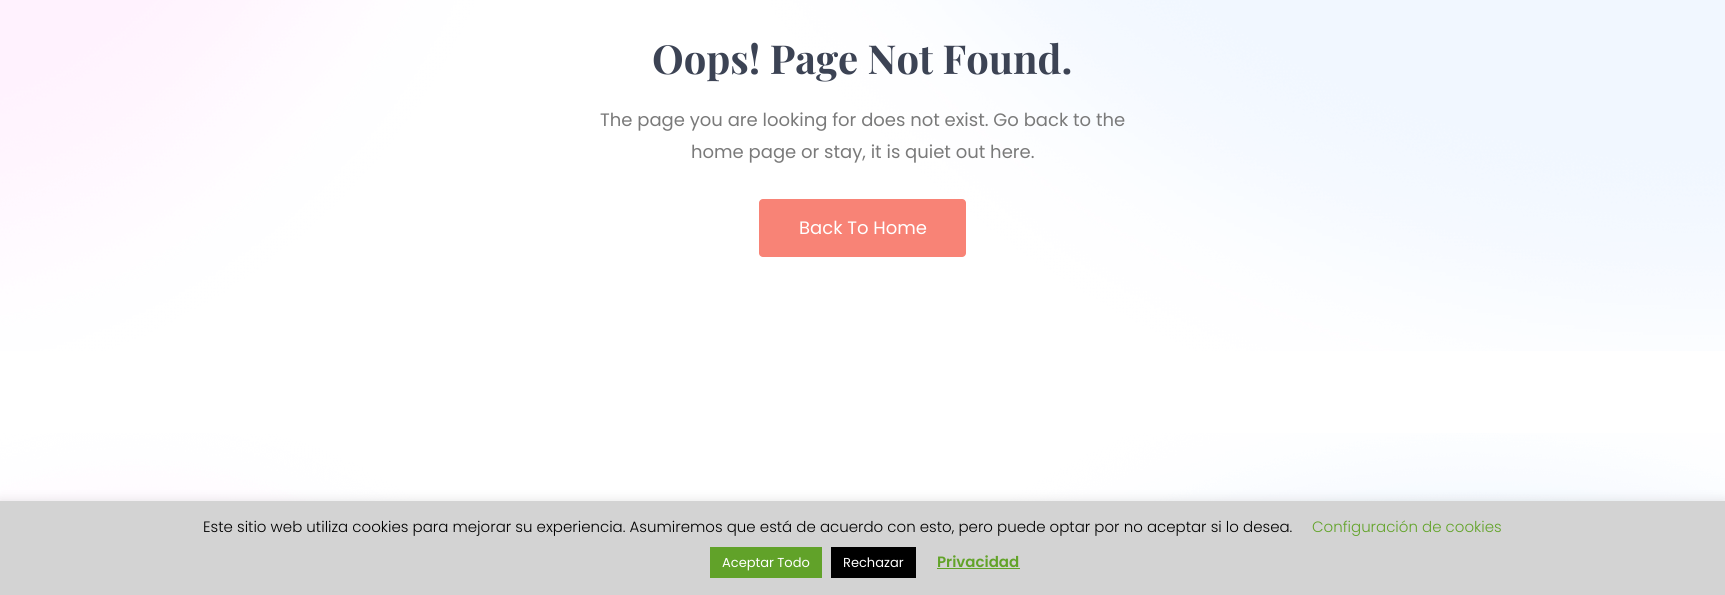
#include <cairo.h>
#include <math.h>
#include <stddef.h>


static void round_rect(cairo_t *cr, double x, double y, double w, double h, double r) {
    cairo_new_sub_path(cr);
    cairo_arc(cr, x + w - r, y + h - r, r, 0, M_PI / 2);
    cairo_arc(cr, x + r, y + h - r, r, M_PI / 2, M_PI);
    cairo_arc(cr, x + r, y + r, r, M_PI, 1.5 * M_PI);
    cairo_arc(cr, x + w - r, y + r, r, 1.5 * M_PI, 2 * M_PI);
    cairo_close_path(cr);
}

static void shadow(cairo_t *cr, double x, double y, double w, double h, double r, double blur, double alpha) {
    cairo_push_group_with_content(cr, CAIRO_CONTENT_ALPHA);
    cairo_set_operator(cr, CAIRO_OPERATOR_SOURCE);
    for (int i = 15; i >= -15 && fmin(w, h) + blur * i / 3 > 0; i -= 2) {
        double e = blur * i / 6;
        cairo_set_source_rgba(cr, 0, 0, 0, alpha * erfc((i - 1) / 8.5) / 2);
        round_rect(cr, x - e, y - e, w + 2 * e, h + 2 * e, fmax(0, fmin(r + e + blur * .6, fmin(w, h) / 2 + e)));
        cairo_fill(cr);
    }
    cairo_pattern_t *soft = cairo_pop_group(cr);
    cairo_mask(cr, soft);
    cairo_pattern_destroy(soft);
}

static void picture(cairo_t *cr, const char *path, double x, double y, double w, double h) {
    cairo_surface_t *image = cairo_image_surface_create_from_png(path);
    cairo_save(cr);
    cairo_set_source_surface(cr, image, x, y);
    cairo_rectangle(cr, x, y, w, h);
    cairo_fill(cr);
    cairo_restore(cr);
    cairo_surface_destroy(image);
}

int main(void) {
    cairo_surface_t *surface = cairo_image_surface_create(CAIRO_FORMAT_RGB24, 1725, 595);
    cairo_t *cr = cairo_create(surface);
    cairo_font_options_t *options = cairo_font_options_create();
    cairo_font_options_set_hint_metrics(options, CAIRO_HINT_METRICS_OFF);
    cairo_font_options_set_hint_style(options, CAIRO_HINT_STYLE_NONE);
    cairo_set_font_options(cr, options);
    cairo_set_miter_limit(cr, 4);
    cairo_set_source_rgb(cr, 1, 1, 1);
    cairo_paint(cr);
    picture(cr, "img1.png", 0, 0, 1725, 351);
    cairo_select_font_face(cr, "Playfair Display", CAIRO_FONT_SLANT_NORMAL, CAIRO_FONT_WEIGHT_BOLD);
    cairo_set_font_size(cr, 40);
    cairo_set_source_rgb(cr, 0.235, 0.263, 0.329);
    cairo_move_to(cr, 652, 74);
    cairo_show_text(cr, "Oops! Page Not Found.");
    cairo_select_font_face(cr, "Poppins", CAIRO_FONT_SLANT_NORMAL, CAIRO_FONT_WEIGHT_NORMAL);
    cairo_set_font_size(cr, 18);
    cairo_set_source_rgb(cr, 0.478, 0.478, 0.478);
    cairo_move_to(cr, 600, 126);
    cairo_show_text(cr, "The page you are looking for does not exist. Go back to the");
    cairo_move_to(cr, 691, 158);
    cairo_show_text(cr, "home page or stay, it is quiet out here.");
    cairo_set_source_rgb(cr, 0.969, 0.514, 0.463);
    round_rect(cr, 759, 199, 207, 58, 4);
    cairo_fill(cr);
    cairo_set_source_rgb(cr, 1, 1, 1);
    cairo_move_to(cr, 799, 234);
    cairo_show_text(cr, "Back To Home");
    picture(cr, "img2.png", 0, 433, 1725, 68);
    cairo_set_source_rgb(cr, 0.675, 0.671, 0.671);
    shadow(cr, 0, 500, 1725, 94, 0, 5, 0.3);
    cairo_set_source_rgb(cr, 0.827, 0.827, 0.827);
    cairo_rectangle(cr, 0, 501, 1725, 94);
    cairo_fill(cr);
    cairo_select_font_face(cr, "Poppins Light", CAIRO_FONT_SLANT_NORMAL, CAIRO_FONT_WEIGHT_NORMAL);
    cairo_set_font_size(cr, 15);
    cairo_set_source_rgb(cr, 0, 0, 0);
    cairo_move_to(cr, 203, 532);
    cairo_show_text(cr, "Este sitio web utiliza cookies para mejorar su experiencia. Asumiremos que está de acuerdo con esto, pero puede optar por no aceptar si lo desea.");
    cairo_set_source_rgb(cr, 0.384, 0.639, 0.161);
    cairo_move_to(cr, 1312, 532);
    cairo_show_text(cr, "Configuración de cookies");
    cairo_set_source_rgb(cr, 0.38, 0.635, 0.161);
    cairo_rectangle(cr, 710, 547, 112, 31);
    cairo_fill(cr);
    cairo_select_font_face(cr, "Poppins", CAIRO_FONT_SLANT_NORMAL, CAIRO_FONT_WEIGHT_NORMAL);
    cairo_set_font_size(cr, 13);
    cairo_set_source_rgb(cr, 1, 1, 1);
    cairo_move_to(cr, 722, 567);
    cairo_show_text(cr, "Aceptar Todo");
    cairo_set_source_rgb(cr, 0, 0, 0);
    cairo_rectangle(cr, 831, 547, 85, 31);
    cairo_fill(cr);
    cairo_set_source_rgb(cr, 1, 1, 1);
    cairo_move_to(cr, 843, 567);
    cairo_show_text(cr, "Rechazar");
    cairo_select_font_face(cr, "Poppins SemiBold", CAIRO_FONT_SLANT_NORMAL, CAIRO_FONT_WEIGHT_NORMAL);
    cairo_set_font_size(cr, 15);
    cairo_set_source_rgb(cr, 0.384, 0.639, 0.161);
    cairo_move_to(cr, 937, 567);
    cairo_show_text(cr, "Privacidad");
    cairo_rectangle(cr, 937, 568, 83, 1);
    cairo_fill(cr);
    cairo_surface_write_to_png(surface, "page.png");
    cairo_font_options_destroy(options);
    cairo_destroy(cr);
    cairo_surface_destroy(surface);
    return 0;
}
